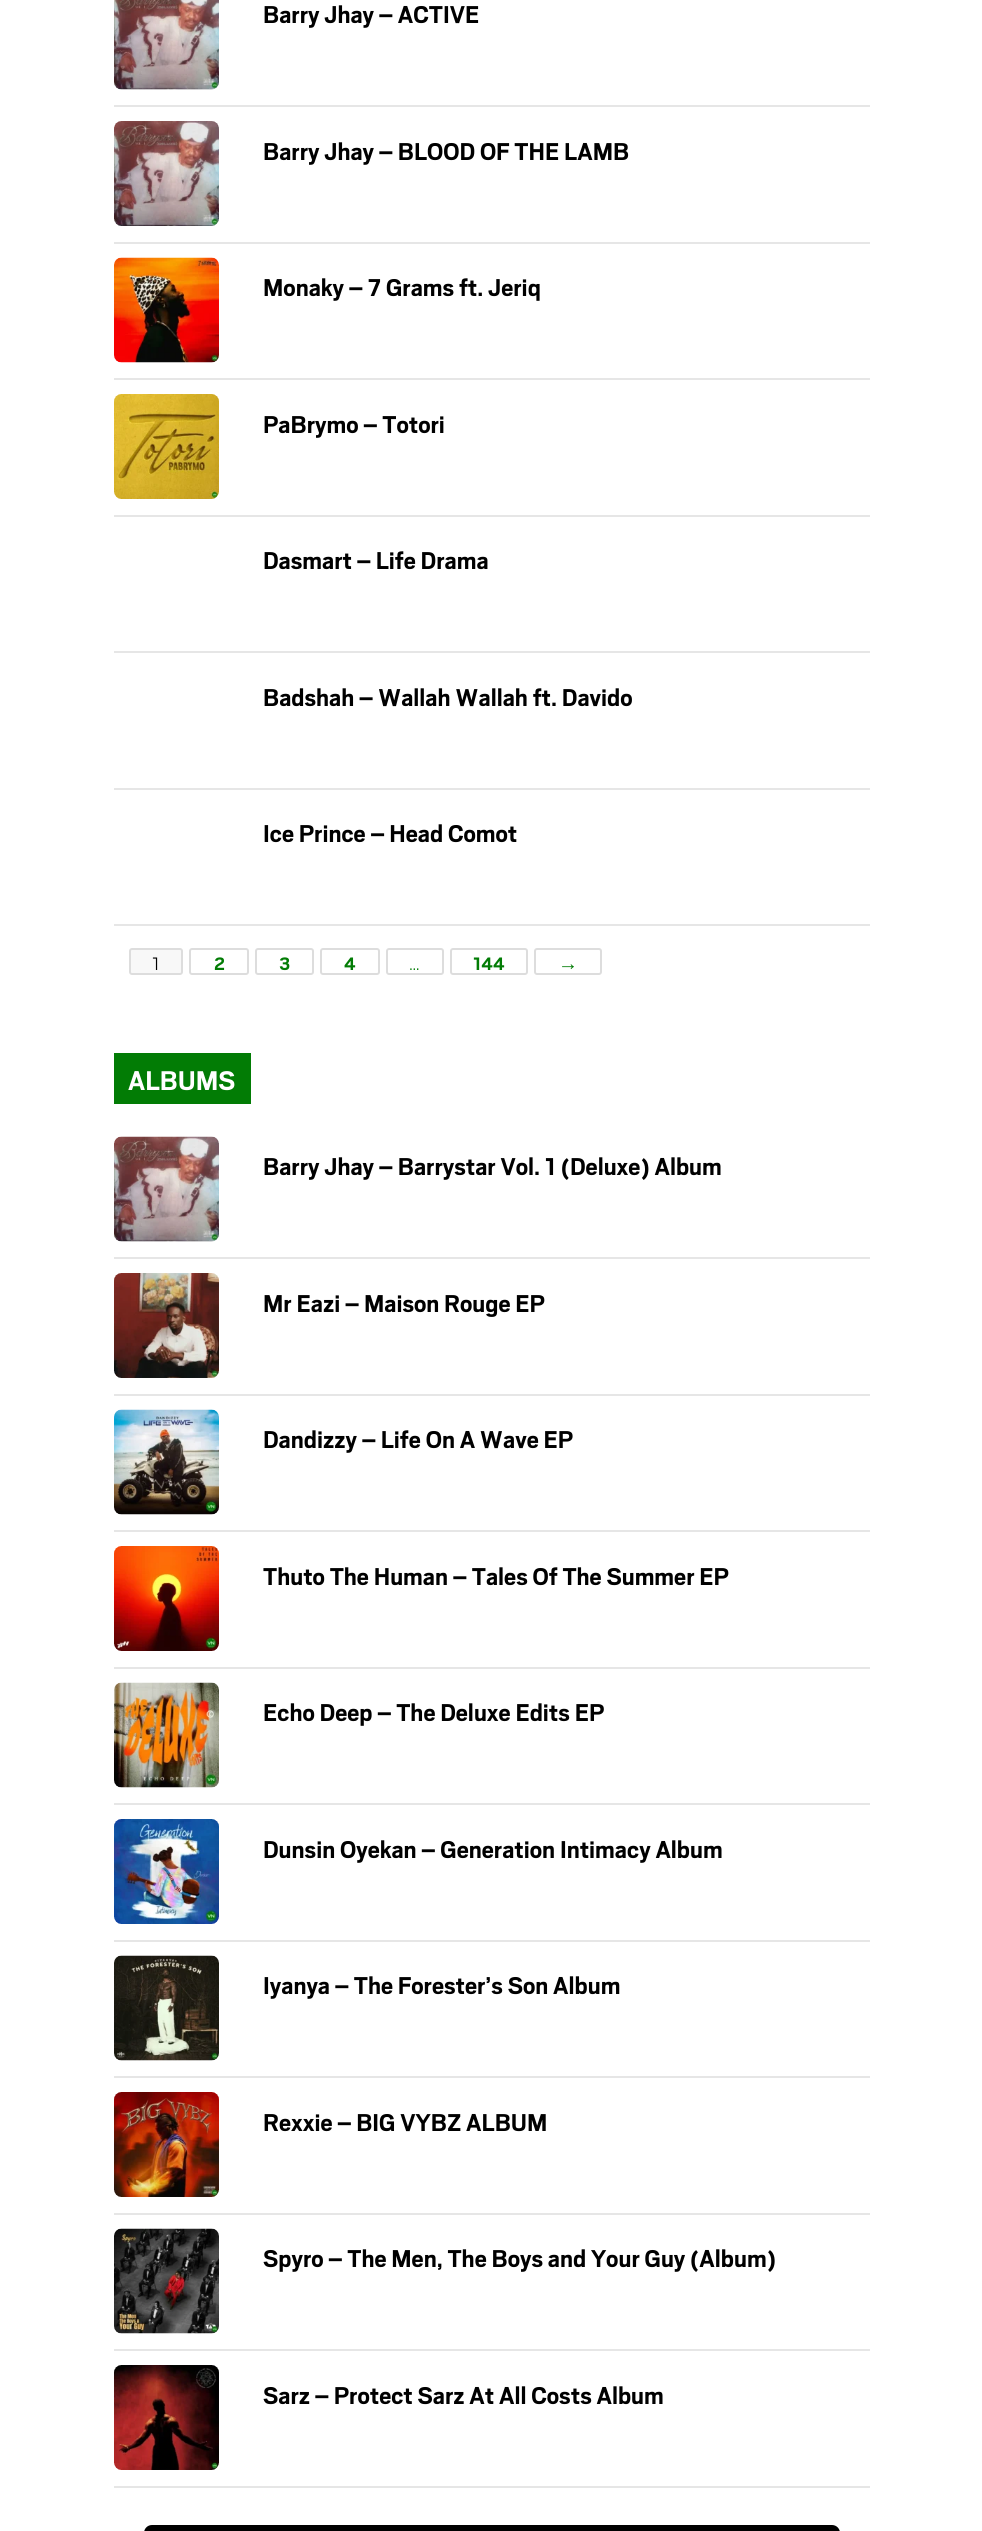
#include <cairo.h>
#include <math.h>
#include <stddef.h>


static void round_rect(cairo_t *cr, double x, double y, double w, double h, double r) {
    cairo_new_sub_path(cr);
    cairo_arc(cr, x + w - r, y + h - r, r, 0, M_PI / 2);
    cairo_arc(cr, x + r, y + h - r, r, M_PI / 2, M_PI);
    cairo_arc(cr, x + r, y + r, r, M_PI, 1.5 * M_PI);
    cairo_arc(cr, x + w - r, y + r, r, 1.5 * M_PI, 2 * M_PI);
    cairo_close_path(cr);
}

static void picture(cairo_t *cr, const char *path, double x, double y, double w, double h) {
    cairo_surface_t *image = cairo_image_surface_create_from_png(path);
    cairo_save(cr);
    cairo_set_source_surface(cr, image, x, y);
    cairo_rectangle(cr, x, y, w, h);
    cairo_fill(cr);
    cairo_restore(cr);
    cairo_surface_destroy(image);
}

int main(void) {
    cairo_surface_t *surface = cairo_image_surface_create(CAIRO_FORMAT_RGB24, 982, 2531);
    cairo_t *cr = cairo_create(surface);
    cairo_font_options_t *options = cairo_font_options_create();
    cairo_font_options_set_hint_metrics(options, CAIRO_HINT_METRICS_OFF);
    cairo_font_options_set_hint_style(options, CAIRO_HINT_STYLE_NONE);
    cairo_set_font_options(cr, options);
    cairo_set_miter_limit(cr, 4);
    cairo_set_source_rgb(cr, 1, 1, 1);
    cairo_paint(cr);
    cairo_set_source_rgb(cr, 0.902, 0.902, 0.902);
    cairo_rectangle(cr, 114, 105, 756, 2);
    cairo_fill(cr);
    picture(cr, "img1.png", 114, 0, 105, 90);
    cairo_select_font_face(cr, "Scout", CAIRO_FONT_SLANT_NORMAL, CAIRO_FONT_WEIGHT_BOLD);
    cairo_set_font_size(cr, 27);
    cairo_set_source_rgb(cr, 0, 0, 0);
    cairo_move_to(cr, 263, 23);
    cairo_show_text(cr, "Barry Jhay – ACTIVE");
    cairo_set_source_rgb(cr, 0.902, 0.902, 0.902);
    cairo_rectangle(cr, 114, 242, 756, 2);
    cairo_fill(cr);
    picture(cr, "img2.png", 114, 121, 105, 105);
    cairo_set_source_rgb(cr, 0, 0, 0);
    cairo_move_to(cr, 263, 160);
    cairo_show_text(cr, "Barry Jhay – BLOOD OF THE LAMB");
    cairo_set_source_rgb(cr, 0.902, 0.902, 0.902);
    cairo_rectangle(cr, 114, 378, 756, 2);
    cairo_fill(cr);
    picture(cr, "img3.png", 114, 257, 105, 106);
    cairo_set_source_rgb(cr, 0, 0, 0);
    cairo_move_to(cr, 263, 296);
    cairo_show_text(cr, "Monaky – 7 Grams ft. Jeriq");
    cairo_set_source_rgb(cr, 0.902, 0.902, 0.902);
    cairo_rectangle(cr, 114, 515, 756, 2);
    cairo_fill(cr);
    picture(cr, "img4.png", 114, 394, 105, 105);
    cairo_set_source_rgb(cr, 0, 0, 0);
    cairo_move_to(cr, 263, 433);
    cairo_show_text(cr, "PaBrymo – Totori");
    cairo_set_source_rgb(cr, 0.902, 0.902, 0.902);
    cairo_rectangle(cr, 114, 651, 756, 2);
    cairo_fill(cr);
    cairo_set_source_rgb(cr, 0, 0, 0);
    cairo_move_to(cr, 263, 569);
    cairo_show_text(cr, "Dasmart – Life Drama");
    cairo_set_source_rgb(cr, 0.902, 0.902, 0.902);
    cairo_rectangle(cr, 114, 788, 756, 2);
    cairo_fill(cr);
    cairo_set_source_rgb(cr, 0, 0, 0);
    cairo_move_to(cr, 263, 706);
    cairo_show_text(cr, "Badshah – Wallah Wallah ft. Davido");
    cairo_set_source_rgb(cr, 0.902, 0.902, 0.902);
    cairo_rectangle(cr, 114, 924, 756, 2);
    cairo_fill(cr);
    cairo_set_source_rgb(cr, 0, 0, 0);
    cairo_move_to(cr, 263, 842);
    cairo_show_text(cr, "Ice Prince – Head Comot");
    cairo_set_source_rgb(cr, 0.969, 0.969, 0.969);
    round_rect(cr, 130, 949, 52, 25, 2);
    cairo_fill_preserve(cr);
    cairo_set_source_rgb(cr, 0.867, 0.867, 0.867);
    cairo_stroke(cr);
    cairo_select_font_face(cr, "Scout Light", CAIRO_FONT_SLANT_NORMAL, CAIRO_FONT_WEIGHT_NORMAL);
    cairo_set_font_size(cr, 20);
    cairo_set_source_rgb(cr, 0, 0, 0);
    cairo_move_to(cr, 152, 970);
    cairo_show_text(cr, "1");
    round_rect(cr, 190, 949, 58, 25, 2);
    cairo_set_source_rgb(cr, 0.867, 0.867, 0.867);
    cairo_stroke(cr);
    cairo_select_font_face(cr, "Scout", CAIRO_FONT_SLANT_NORMAL, CAIRO_FONT_WEIGHT_BOLD);
    cairo_set_source_rgb(cr, 0.008, 0.486, 0.02);
    cairo_move_to(cr, 214, 970);
    cairo_show_text(cr, "2");
    round_rect(cr, 256, 949, 57, 25, 2);
    cairo_set_source_rgb(cr, 0.867, 0.867, 0.867);
    cairo_stroke(cr);
    cairo_set_source_rgb(cr, 0.008, 0.486, 0.02);
    cairo_move_to(cr, 279, 970);
    cairo_show_text(cr, "3");
    round_rect(cr, 321, 949, 58, 25, 2);
    cairo_set_source_rgb(cr, 0.867, 0.867, 0.867);
    cairo_stroke(cr);
    cairo_set_source_rgb(cr, 0.008, 0.486, 0.02);
    cairo_move_to(cr, 344, 970);
    cairo_show_text(cr, "4");
    round_rect(cr, 387, 949, 56, 25, 2);
    cairo_set_source_rgb(cr, 0.867, 0.867, 0.867);
    cairo_stroke(cr);
    cairo_select_font_face(cr, "Scout Light", CAIRO_FONT_SLANT_NORMAL, CAIRO_FONT_WEIGHT_NORMAL);
    cairo_set_source_rgb(cr, 0.008, 0.486, 0.02);
    cairo_move_to(cr, 409, 970);
    cairo_show_text(cr, "…");
    round_rect(cr, 451, 949, 76, 25, 2);
    cairo_set_source_rgb(cr, 0.867, 0.867, 0.867);
    cairo_stroke(cr);
    cairo_select_font_face(cr, "Scout", CAIRO_FONT_SLANT_NORMAL, CAIRO_FONT_WEIGHT_BOLD);
    cairo_set_source_rgb(cr, 0.008, 0.486, 0.02);
    cairo_move_to(cr, 473, 970);
    cairo_show_text(cr, "144");
    round_rect(cr, 535, 949, 66, 25, 2);
    cairo_set_source_rgb(cr, 0.867, 0.867, 0.867);
    cairo_stroke(cr);
    cairo_select_font_face(cr, "Liberation Sans", CAIRO_FONT_SLANT_NORMAL, CAIRO_FONT_WEIGHT_NORMAL);
    cairo_set_source_rgb(cr, 0.008, 0.486, 0.02);
    cairo_move_to(cr, 558, 970);
    cairo_show_text(cr, "→");
    cairo_rectangle(cr, 114, 1053, 15, 51);
    cairo_fill(cr);
    cairo_rectangle(cr, 129, 1053, 122, 51);
    cairo_fill(cr);
    cairo_select_font_face(cr, "Scout", CAIRO_FONT_SLANT_NORMAL, CAIRO_FONT_WEIGHT_BOLD);
    cairo_set_font_size(cr, 30);
    cairo_set_source_rgb(cr, 1, 1, 1);
    cairo_move_to(cr, 128, 1090);
    cairo_show_text(cr, "ALBUMS");
    cairo_set_source_rgb(cr, 0.902, 0.902, 0.902);
    cairo_rectangle(cr, 114, 1257, 756, 2);
    cairo_fill(cr);
    picture(cr, "img5.png", 114, 1136, 105, 106);
    cairo_set_font_size(cr, 27);
    cairo_set_source_rgb(cr, 0, 0, 0);
    cairo_move_to(cr, 263, 1175);
    cairo_show_text(cr, "Barry Jhay – Barrystar Vol. 1 (Deluxe) Album");
    cairo_set_source_rgb(cr, 0.902, 0.902, 0.902);
    cairo_rectangle(cr, 114, 1394, 756, 2);
    cairo_fill(cr);
    picture(cr, "img6.png", 114, 1273, 105, 105);
    cairo_set_source_rgb(cr, 0, 0, 0);
    cairo_move_to(cr, 263, 1312);
    cairo_show_text(cr, "Mr Eazi – Maison Rouge EP");
    cairo_set_source_rgb(cr, 0.902, 0.902, 0.902);
    cairo_rectangle(cr, 114, 1530, 756, 2);
    cairo_fill(cr);
    picture(cr, "img7.png", 114, 1409, 105, 106);
    cairo_set_source_rgb(cr, 0, 0, 0);
    cairo_move_to(cr, 263, 1448);
    cairo_show_text(cr, "Dandizzy – Life On A Wave EP");
    cairo_set_source_rgb(cr, 0.902, 0.902, 0.902);
    cairo_rectangle(cr, 114, 1667, 756, 2);
    cairo_fill(cr);
    picture(cr, "img8.png", 114, 1546, 105, 105);
    cairo_set_source_rgb(cr, 0, 0, 0);
    cairo_move_to(cr, 263, 1585);
    cairo_show_text(cr, "Thuto The Human – Tales Of The Summer EP");
    cairo_set_source_rgb(cr, 0.902, 0.902, 0.902);
    cairo_rectangle(cr, 114, 1803, 756, 2);
    cairo_fill(cr);
    picture(cr, "img9.png", 114, 1682, 105, 106);
    cairo_set_source_rgb(cr, 0, 0, 0);
    cairo_move_to(cr, 263, 1721);
    cairo_show_text(cr, "Echo Deep – The Deluxe Edits EP");
    cairo_set_source_rgb(cr, 0.902, 0.902, 0.902);
    cairo_rectangle(cr, 114, 1940, 756, 2);
    cairo_fill(cr);
    picture(cr, "img10.png", 114, 1819, 105, 105);
    cairo_set_source_rgb(cr, 0, 0, 0);
    cairo_move_to(cr, 263, 1858);
    cairo_show_text(cr, "Dunsin Oyekan – Generation Intimacy Album");
    cairo_set_source_rgb(cr, 0.902, 0.902, 0.902);
    cairo_rectangle(cr, 114, 2076, 756, 2);
    cairo_fill(cr);
    picture(cr, "img11.png", 114, 1955, 105, 106);
    cairo_set_source_rgb(cr, 0, 0, 0);
    cairo_move_to(cr, 263, 1994);
    cairo_show_text(cr, "Iyanya – The Forester’s Son Album");
    cairo_set_source_rgb(cr, 0.902, 0.902, 0.902);
    cairo_rectangle(cr, 114, 2213, 756, 2);
    cairo_fill(cr);
    picture(cr, "img12.png", 114, 2092, 105, 105);
    cairo_set_source_rgb(cr, 0, 0, 0);
    cairo_move_to(cr, 263, 2131);
    cairo_show_text(cr, "Rexxie – BIG VYBZ ALBUM");
    cairo_set_source_rgb(cr, 0.902, 0.902, 0.902);
    cairo_rectangle(cr, 114, 2349, 756, 2);
    cairo_fill(cr);
    picture(cr, "img13.png", 114, 2228, 105, 106);
    cairo_set_source_rgb(cr, 0, 0, 0);
    cairo_move_to(cr, 263, 2267);
    cairo_show_text(cr, "Spyro – The Men, The Boys and Your Guy (Album)");
    cairo_set_source_rgb(cr, 0.902, 0.902, 0.902);
    cairo_rectangle(cr, 114, 2486, 756, 2);
    cairo_fill(cr);
    picture(cr, "img14.png", 114, 2365, 105, 105);
    cairo_set_source_rgb(cr, 0, 0, 0);
    cairo_move_to(cr, 263, 2404);
    cairo_show_text(cr, "Sarz – Protect Sarz At All Costs Album");
    round_rect(cr, 144, 2525, 696, 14, 8);
    cairo_fill(cr);
    cairo_surface_write_to_png(surface, "page.png");
    cairo_font_options_destroy(options);
    cairo_destroy(cr);
    cairo_surface_destroy(surface);
    return 0;
}
